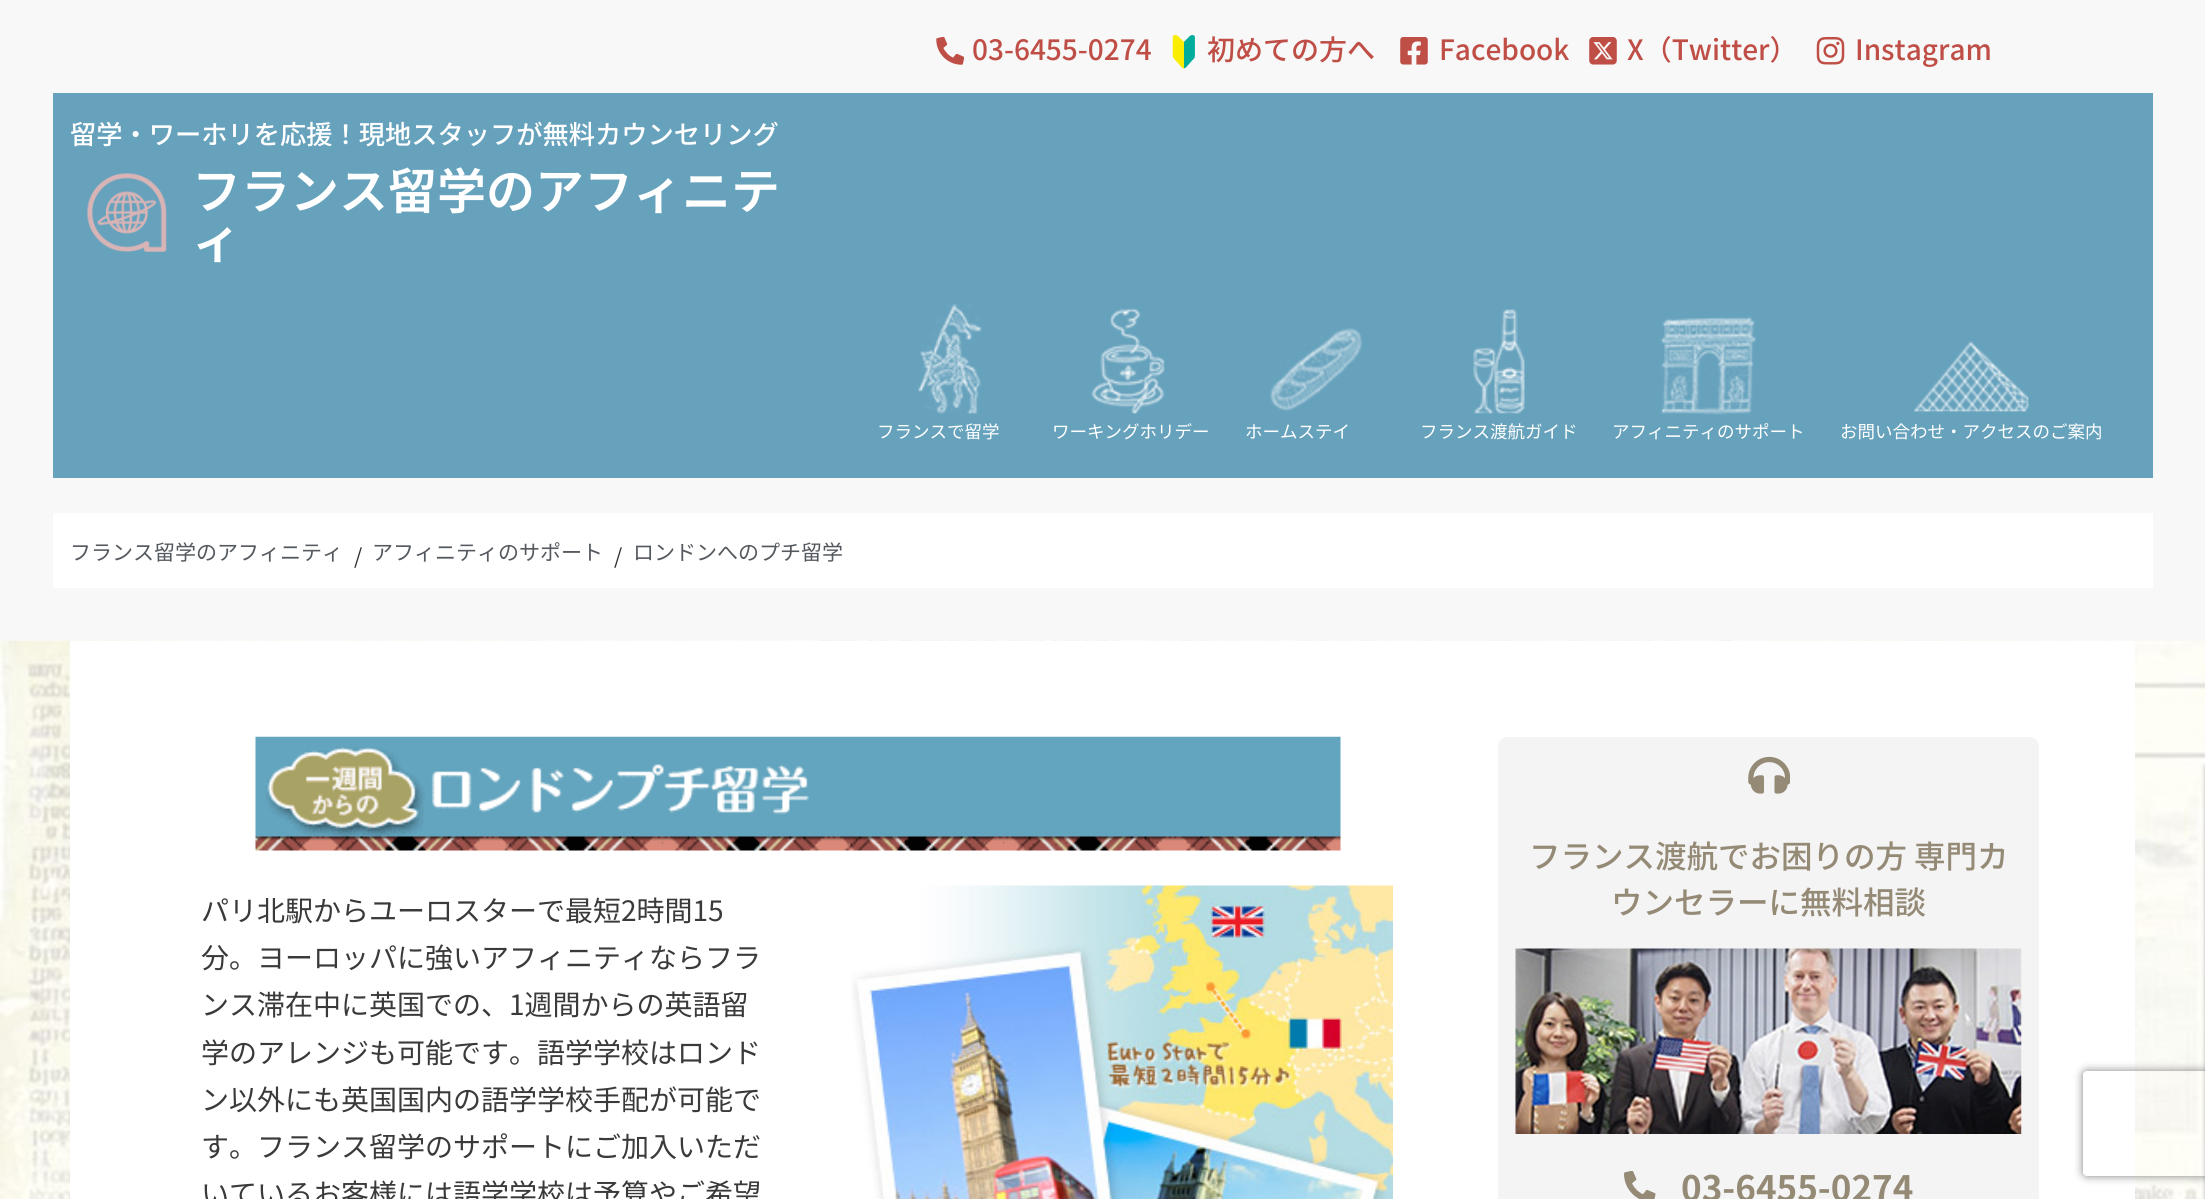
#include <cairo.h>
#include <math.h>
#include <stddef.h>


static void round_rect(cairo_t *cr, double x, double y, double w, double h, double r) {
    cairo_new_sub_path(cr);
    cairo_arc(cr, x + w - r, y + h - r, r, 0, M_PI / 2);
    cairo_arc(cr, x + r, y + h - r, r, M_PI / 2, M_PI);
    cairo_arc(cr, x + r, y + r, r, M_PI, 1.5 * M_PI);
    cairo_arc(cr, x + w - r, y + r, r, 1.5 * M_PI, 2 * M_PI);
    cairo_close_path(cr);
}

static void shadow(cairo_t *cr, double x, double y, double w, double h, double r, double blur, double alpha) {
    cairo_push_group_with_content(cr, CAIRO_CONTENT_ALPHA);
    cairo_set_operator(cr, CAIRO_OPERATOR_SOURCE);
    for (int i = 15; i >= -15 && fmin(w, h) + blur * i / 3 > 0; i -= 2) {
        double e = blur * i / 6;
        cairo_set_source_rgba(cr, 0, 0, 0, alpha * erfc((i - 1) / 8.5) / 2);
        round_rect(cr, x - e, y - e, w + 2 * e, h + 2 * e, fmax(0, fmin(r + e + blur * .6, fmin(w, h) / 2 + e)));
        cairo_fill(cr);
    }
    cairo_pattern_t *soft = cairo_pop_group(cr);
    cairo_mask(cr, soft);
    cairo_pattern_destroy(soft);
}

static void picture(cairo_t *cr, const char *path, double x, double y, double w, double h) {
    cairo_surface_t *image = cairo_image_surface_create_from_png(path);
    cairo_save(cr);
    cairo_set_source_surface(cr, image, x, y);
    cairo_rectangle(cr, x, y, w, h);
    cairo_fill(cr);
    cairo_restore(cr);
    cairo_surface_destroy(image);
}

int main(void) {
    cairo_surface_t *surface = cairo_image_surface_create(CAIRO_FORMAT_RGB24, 2205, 1199);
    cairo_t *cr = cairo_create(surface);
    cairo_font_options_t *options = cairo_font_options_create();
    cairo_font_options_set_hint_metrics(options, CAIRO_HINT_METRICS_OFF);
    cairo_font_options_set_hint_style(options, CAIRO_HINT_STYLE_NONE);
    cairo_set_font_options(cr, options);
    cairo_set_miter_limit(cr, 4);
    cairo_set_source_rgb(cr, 0.969, 0.969, 0.969);
    cairo_paint(cr);
    picture(cr, "img1.png", 936, 37, 28, 28);
    cairo_select_font_face(cr, "Noto Sans JP Medium", CAIRO_FONT_SLANT_NORMAL, CAIRO_FONT_WEIGHT_NORMAL);
    cairo_set_font_size(cr, 28);
    cairo_set_source_rgb(cr, 0.749, 0.31, 0.275);
    cairo_move_to(cr, 972, 60);
    cairo_show_text(cr, "03-6455-0274");
    picture(cr, "img2.png", 1172, 35, 23, 34);
    cairo_move_to(cr, 1207, 60);
    cairo_show_text(cr, "初めての方へ");
    picture(cr, "img3.png", 1400, 37, 28, 28);
    cairo_move_to(cr, 1439, 60);
    cairo_show_text(cr, "Facebook");
    picture(cr, "img4.png", 1589, 37, 28, 28);
    cairo_move_to(cr, 1627, 60);
    cairo_show_text(cr, "X（Twitter）");
    picture(cr, "img5.png", 1816, 36, 29, 29);
    cairo_move_to(cr, 1855, 60);
    cairo_show_text(cr, "Instagram");
    cairo_set_source_rgb(cr, 0.404, 0.635, 0.741);
    cairo_rectangle(cr, 53, 93, 2100, 385);
    cairo_fill(cr);
    cairo_set_font_size(cr, 26.25);
    cairo_set_source_rgb(cr, 1, 1, 1);
    cairo_move_to(cr, 70, 144);
    cairo_show_text(cr, "留学・ワーホリを応援！現地スタッフが無料カウンセリング");
    picture(cr, "img6.png", 87, 173, 80, 79);
    cairo_select_font_face(cr, "Noto Sans JP SemiBold", CAIRO_FONT_SLANT_NORMAL, CAIRO_FONT_WEIGHT_NORMAL);
    cairo_set_font_size(cr, 49);
    cairo_move_to(cr, 192, 209);
    cairo_show_text(cr, "フランス留学のアフィニテ");
    cairo_move_to(cr, 192, 258);
    cairo_show_text(cr, "ィ");
    picture(cr, "img7.png", 916, 304, 66, 110);
    cairo_select_font_face(cr, "Noto Sans JP", CAIRO_FONT_SLANT_NORMAL, CAIRO_FONT_WEIGHT_NORMAL);
    cairo_set_font_size(cr, 17.5);
    cairo_move_to(cr, 877, 438);
    cairo_show_text(cr, "フランスで留学");
    picture(cr, "img8.png", 1091, 308, 74, 106);
    cairo_move_to(cr, 1052, 438);
    cairo_show_text(cr, "ワーキングホリデー");
    picture(cr, "img9.png", 1270, 327, 93, 85);
    cairo_move_to(cr, 1245, 438);
    cairo_show_text(cr, "ホームステイ");
    picture(cr, "img10.png", 1473, 309, 52, 105);
    cairo_move_to(cr, 1420, 438);
    cairo_show_text(cr, "フランス渡航ガイド");
    picture(cr, "img11.png", 1660, 316, 96, 99);
    cairo_move_to(cr, 1612, 438);
    cairo_show_text(cr, "アフィニティのサポート");
    picture(cr, "img12.png", 1914, 341, 115, 71);
    cairo_move_to(cr, 1840, 438);
    cairo_show_text(cr, "お問い合わせ・アクセスのご案内");
    cairo_rectangle(cr, 53, 513, 2100, 75);
    cairo_fill(cr);
    cairo_set_font_size(cr, 21);
    cairo_set_source_rgb(cr, 0.329, 0.349, 0.373);
    cairo_move_to(cr, 70, 560);
    cairo_show_text(cr, "フランス留学のアフィニティ");
    cairo_set_source_rgb(cr, 0.2, 0.2, 0.2);
    cairo_move_to(cr, 354, 564);
    cairo_show_text(cr, "/");
    cairo_set_source_rgb(cr, 0.329, 0.349, 0.373);
    cairo_move_to(cr, 372, 560);
    cairo_show_text(cr, "アフィニティのサポート");
    cairo_set_source_rgb(cr, 0.2, 0.2, 0.2);
    cairo_move_to(cr, 614, 564);
    cairo_show_text(cr, "/");
    cairo_set_source_rgb(cr, 0.329, 0.349, 0.373);
    cairo_move_to(cr, 633, 560);
    cairo_show_text(cr, "ロンドンへのプチ留学");
    picture(cr, "img13.png", 0, 640, 2205, 559);
    cairo_set_source_rgb(cr, 1, 1, 1);
    cairo_rectangle(cr, 70, 641, 2065, 558);
    cairo_fill(cr);
    picture(cr, "img14.png", 255, 736, 1086, 115);
    cairo_set_font_size(cr, 28);
    cairo_set_source_rgb(cr, 0.227, 0.227, 0.227);
    cairo_move_to(cr, 201, 921);
    cairo_show_text(cr, "パリ北駅からユーロスターで最短2時間15");
    cairo_move_to(cr, 201, 968);
    cairo_show_text(cr, "分。ヨーロッパに強いアフィニティならフラ");
    cairo_move_to(cr, 201, 1015);
    cairo_show_text(cr, "ンス滞在中に英国での、1週間からの英語留");
    cairo_move_to(cr, 201, 1063);
    cairo_show_text(cr, "学のアレンジも可能です。語学学校はロンド");
    cairo_move_to(cr, 201, 1110);
    cairo_show_text(cr, "ン以外にも英国国内の語学学校手配が可能で");
    cairo_move_to(cr, 201, 1157);
    cairo_show_text(cr, "す。フランス留学のサポートにご加入いただ");
    cairo_move_to(cr, 201, 1204);
    cairo_show_text(cr, "いているお客様には語学学校は予算やご希望");
    picture(cr, "img15.png", 851, 885, 542, 314);
    cairo_set_source_rgb(cr, 0.957, 0.957, 0.957);
    round_rect(cr, 1498, 737, 541, 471, 9);
    cairo_fill(cr);
    picture(cr, "img16.png", 1748, 756, 42, 38);
    cairo_select_font_face(cr, "Noto Sans JP Medium", CAIRO_FONT_SLANT_NORMAL, CAIRO_FONT_WEIGHT_NORMAL);
    cairo_set_font_size(cr, 31.5);
    cairo_set_source_rgb(cr, 0.58, 0.541, 0.463);
    cairo_move_to(cr, 1529, 868);
    cairo_show_text(cr, "フランス渡航でお困りの方 専門カ");
    cairo_move_to(cr, 1611, 914);
    cairo_show_text(cr, "ウンセラーに無料相談");
    picture(cr, "img17.png", 1515, 948, 507, 186);
    picture(cr, "img18.png", 1624, 1171, 32, 28);
    cairo_select_font_face(cr, "Noto Sans JP", CAIRO_FONT_SLANT_NORMAL, CAIRO_FONT_WEIGHT_BOLD);
    cairo_set_font_size(cr, 35);
    cairo_move_to(cr, 1681, 1201);
    cairo_show_text(cr, "03-6455-0274");
    cairo_save(cr);
    cairo_set_fill_rule(cr, CAIRO_FILL_RULE_EVEN_ODD);
    cairo_new_path(cr);
    cairo_move_to(cr, 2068, 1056);
    cairo_line_to(cr, 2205, 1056);
    cairo_line_to(cr, 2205, 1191);
    cairo_line_to(cr, 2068, 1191);
    cairo_close_path(cr);
    cairo_move_to(cr, 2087, 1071);
    cairo_line_to(cr, 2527, 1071);
    cairo_curve_to(cr, 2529, 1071, 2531, 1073, 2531, 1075);
    cairo_line_to(cr, 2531, 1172);
    cairo_curve_to(cr, 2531, 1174, 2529, 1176, 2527, 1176);
    cairo_line_to(cr, 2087, 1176);
    cairo_curve_to(cr, 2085, 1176, 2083, 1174, 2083, 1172);
    cairo_line_to(cr, 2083, 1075);
    cairo_curve_to(cr, 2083, 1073, 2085, 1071, 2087, 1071);
    cairo_close_path(cr);
    cairo_clip(cr);
    cairo_set_source_rgb(cr, 0.502, 0.502, 0.502);
    shadow(cr, 2083, 1071, 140, 105, 4, 4.5, 1);
    cairo_restore(cr);
    cairo_surface_write_to_png(surface, "page.png");
    cairo_font_options_destroy(options);
    cairo_destroy(cr);
    cairo_surface_destroy(surface);
    return 0;
}
